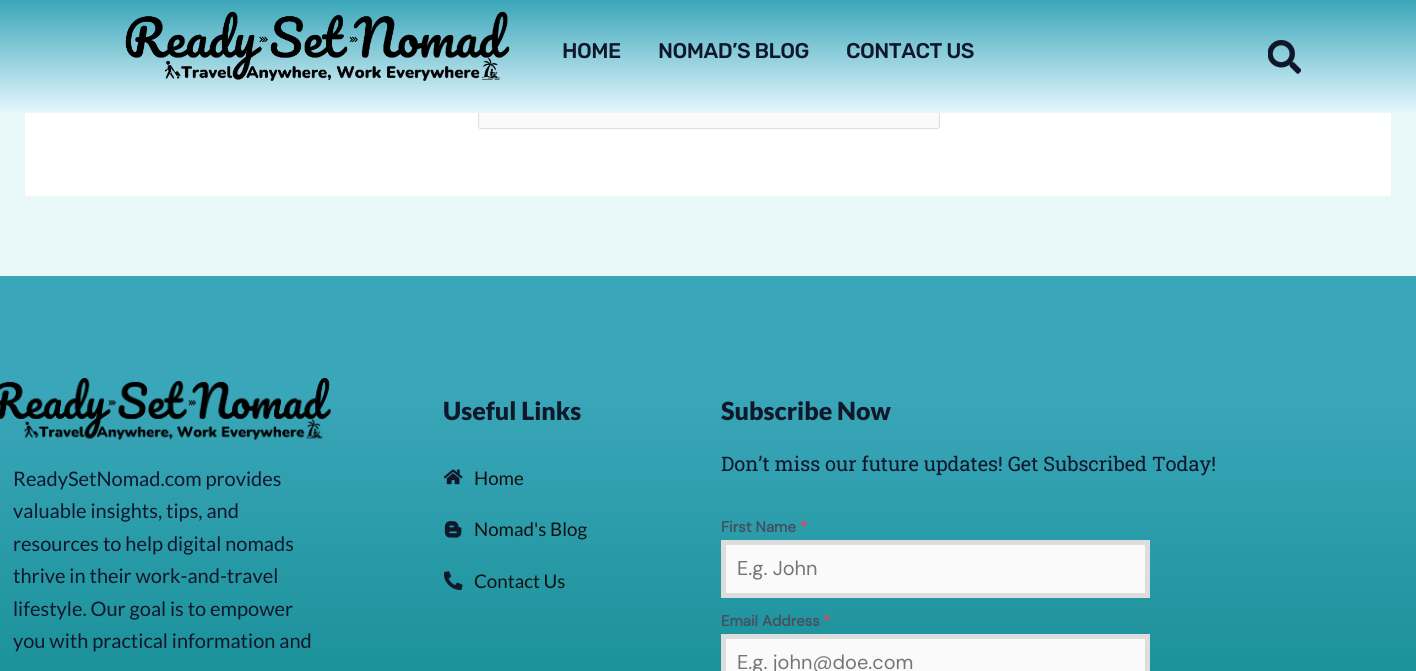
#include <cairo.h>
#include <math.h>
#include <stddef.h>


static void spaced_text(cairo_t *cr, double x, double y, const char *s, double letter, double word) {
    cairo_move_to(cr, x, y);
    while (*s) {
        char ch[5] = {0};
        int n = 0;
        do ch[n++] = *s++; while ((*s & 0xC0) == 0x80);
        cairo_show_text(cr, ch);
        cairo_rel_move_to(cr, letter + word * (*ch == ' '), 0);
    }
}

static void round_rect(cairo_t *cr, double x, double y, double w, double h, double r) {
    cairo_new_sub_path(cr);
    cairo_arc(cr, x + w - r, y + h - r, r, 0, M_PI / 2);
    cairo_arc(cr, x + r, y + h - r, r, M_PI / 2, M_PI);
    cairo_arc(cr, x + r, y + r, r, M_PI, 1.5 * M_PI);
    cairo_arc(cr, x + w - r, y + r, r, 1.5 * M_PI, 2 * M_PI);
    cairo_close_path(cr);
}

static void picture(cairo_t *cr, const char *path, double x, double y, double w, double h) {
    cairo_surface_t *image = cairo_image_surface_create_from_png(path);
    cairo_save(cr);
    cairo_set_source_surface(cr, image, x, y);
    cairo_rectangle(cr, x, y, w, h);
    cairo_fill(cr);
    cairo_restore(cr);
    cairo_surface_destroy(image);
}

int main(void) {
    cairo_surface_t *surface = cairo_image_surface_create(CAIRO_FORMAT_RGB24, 1416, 671);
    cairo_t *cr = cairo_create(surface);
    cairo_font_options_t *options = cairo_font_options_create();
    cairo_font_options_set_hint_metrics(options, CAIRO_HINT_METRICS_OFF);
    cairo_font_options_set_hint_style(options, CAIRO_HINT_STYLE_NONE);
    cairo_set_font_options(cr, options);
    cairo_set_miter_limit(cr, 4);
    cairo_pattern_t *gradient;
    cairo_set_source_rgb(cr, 0.914, 0.973, 0.976);
    cairo_paint(cr);
    cairo_set_source_rgb(cr, 1, 1, 1);
    cairo_rectangle(cr, 25, 113, 1366, 83);
    cairo_fill(cr);
    cairo_set_source_rgb(cr, 0.98, 0.98, 0.98);
    round_rect(cr, 478.5, 65.5, 461, 63, 2);
    cairo_fill_preserve(cr);
    cairo_set_source_rgb(cr, 0.867, 0.867, 0.867);
    cairo_set_line_width(cr, 1);
    cairo_stroke(cr);
    gradient = cairo_pattern_create_linear(708, 0, 708, 113);
    cairo_pattern_add_color_stop_rgba(gradient, 0, 0.227, 0.651, 0.725, 1);
    cairo_pattern_add_color_stop_rgba(gradient, 1, 0.902, 0.969, 1, 1);
    cairo_set_source(cr, gradient);
    cairo_pattern_destroy(gradient);
    cairo_rectangle(cr, 0, 0, 1416, 113);
    cairo_fill(cr);
    picture(cr, "img1.png", 125, 11, 385, 70);
    cairo_select_font_face(cr, "Rubik Medium", CAIRO_FONT_SLANT_NORMAL, CAIRO_FONT_WEIGHT_NORMAL);
    cairo_set_font_size(cr, 21.25);
    cairo_set_source_rgb(cr, 0.059, 0.09, 0.165);
    spaced_text(cr, 562, 58, "HOME", -0.5, 0);
    spaced_text(cr, 658, 58, "NOMAD’S BLOG", -0.5, 0);
    spaced_text(cr, 846, 58, "CONTACT US", -0.5, 0);
    picture(cr, "img2.png", 1268, 40, 33, 34);
    gradient = cairo_pattern_create_linear(708, 276, 708, 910);
    cairo_pattern_add_color_stop_rgba(gradient, 0.19, 0.227, 0.651, 0.725, 1);
    cairo_pattern_add_color_stop_rgba(gradient, 1, 0, 0.502, 0.502, 1);
    cairo_set_source(cr, gradient);
    cairo_pattern_destroy(gradient);
    cairo_rectangle(cr, 0, 276, 1416, 395);
    cairo_fill(cr);
    picture(cr, "img3.png", 0, 378, 331, 63);
    cairo_select_font_face(cr, "Lato", CAIRO_FONT_SLANT_NORMAL, CAIRO_FONT_WEIGHT_NORMAL);
    cairo_set_font_size(cr, 20);
    cairo_set_source_rgb(cr, 0.059, 0.09, 0.165);
    cairo_move_to(cr, 13, 486);
    cairo_show_text(cr, "ReadySetNomad.com provides");
    cairo_move_to(cr, 13, 518);
    cairo_show_text(cr, "valuable insights, tips, and");
    cairo_move_to(cr, 13, 551);
    cairo_show_text(cr, "resources to help digital nomads");
    cairo_move_to(cr, 13, 583);
    cairo_show_text(cr, "thrive in their work-and-travel");
    cairo_move_to(cr, 13, 616);
    cairo_show_text(cr, "lifestyle. Our goal is to empower");
    cairo_move_to(cr, 13, 648);
    cairo_show_text(cr, "you with practical information and");
    cairo_select_font_face(cr, "Lato Black", CAIRO_FONT_SLANT_NORMAL, CAIRO_FONT_WEIGHT_NORMAL);
    cairo_set_font_size(cr, 25);
    cairo_move_to(cr, 443, 420);
    cairo_show_text(cr, "Useful Links");
    picture(cr, "img4.png", 444, 469, 19, 16);
    cairo_select_font_face(cr, "Lato", CAIRO_FONT_SLANT_NORMAL, CAIRO_FONT_WEIGHT_NORMAL);
    cairo_set_font_size(cr, 18.75);
    cairo_set_source_rgb(cr, 0.067, 0.067, 0.067);
    cairo_move_to(cr, 474, 485);
    cairo_show_text(cr, "Home");
    picture(cr, "img5.png", 444, 521, 18, 17);
    cairo_move_to(cr, 474, 536);
    cairo_show_text(cr, "Nomad's Blog");
    picture(cr, "img6.png", 444, 571, 19, 19);
    cairo_move_to(cr, 474, 588);
    cairo_show_text(cr, "Contact Us");
    cairo_select_font_face(cr, "Lato Black", CAIRO_FONT_SLANT_NORMAL, CAIRO_FONT_WEIGHT_NORMAL);
    cairo_set_font_size(cr, 25);
    cairo_set_source_rgb(cr, 0.059, 0.09, 0.165);
    cairo_move_to(cr, 721, 420);
    cairo_show_text(cr, "Subscribe Now");
    cairo_select_font_face(cr, "Roboto Slab", CAIRO_FONT_SLANT_NORMAL, CAIRO_FONT_WEIGHT_NORMAL);
    cairo_set_font_size(cr, 20);
    cairo_move_to(cr, 721, 471);
    cairo_show_text(cr, "Don’t miss our future updates! Get Subscribed Today!");
    cairo_select_font_face(cr, "DM Sans", CAIRO_FONT_SLANT_NORMAL, CAIRO_FONT_WEIGHT_BOLD);
    cairo_set_font_size(cr, 15);
    cairo_set_source_rgb(cr, 0.271, 0.31, 0.369);
    cairo_move_to(cr, 721, 532);
    cairo_show_text(cr, "First Name");
    cairo_set_source_rgb(cr, 0.878, 0.271, 0.384);
    cairo_move_to(cr, 800, 532);
    cairo_show_text(cr, "*");
    cairo_set_source_rgb(cr, 0.98, 0.98, 0.98);
    cairo_rectangle(cr, 723.5, 542.5, 424, 53);
    cairo_fill_preserve(cr);
    cairo_set_source_rgb(cr, 0.867, 0.867, 0.867);
    cairo_set_line_width(cr, 5);
    cairo_stroke(cr);
    cairo_select_font_face(cr, "DM Sans", CAIRO_FONT_SLANT_NORMAL, CAIRO_FONT_WEIGHT_NORMAL);
    cairo_set_font_size(cr, 20);
    cairo_set_source_rgb(cr, 0.459, 0.459, 0.459);
    cairo_move_to(cr, 737, 575);
    cairo_show_text(cr, "E.g. John");
    cairo_select_font_face(cr, "DM Sans", CAIRO_FONT_SLANT_NORMAL, CAIRO_FONT_WEIGHT_BOLD);
    cairo_set_font_size(cr, 15);
    cairo_set_source_rgb(cr, 0.271, 0.31, 0.369);
    cairo_move_to(cr, 721, 626);
    cairo_show_text(cr, "Email Address");
    cairo_set_source_rgb(cr, 0.878, 0.271, 0.384);
    cairo_move_to(cr, 823, 626);
    cairo_show_text(cr, "*");
    cairo_set_source_rgb(cr, 0.98, 0.98, 0.98);
    cairo_rectangle(cr, 723.5, 636.5, 424, 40);
    cairo_fill_preserve(cr);
    cairo_set_source_rgb(cr, 0.867, 0.867, 0.867);
    cairo_stroke(cr);
    cairo_select_font_face(cr, "DM Sans", CAIRO_FONT_SLANT_NORMAL, CAIRO_FONT_WEIGHT_NORMAL);
    cairo_set_font_size(cr, 20);
    cairo_set_source_rgb(cr, 0.459, 0.459, 0.459);
    cairo_move_to(cr, 737, 669);
    cairo_show_text(cr, "E.g. john@doe.com");
    cairo_surface_write_to_png(surface, "page.png");
    cairo_font_options_destroy(options);
    cairo_destroy(cr);
    cairo_surface_destroy(surface);
    return 0;
}
